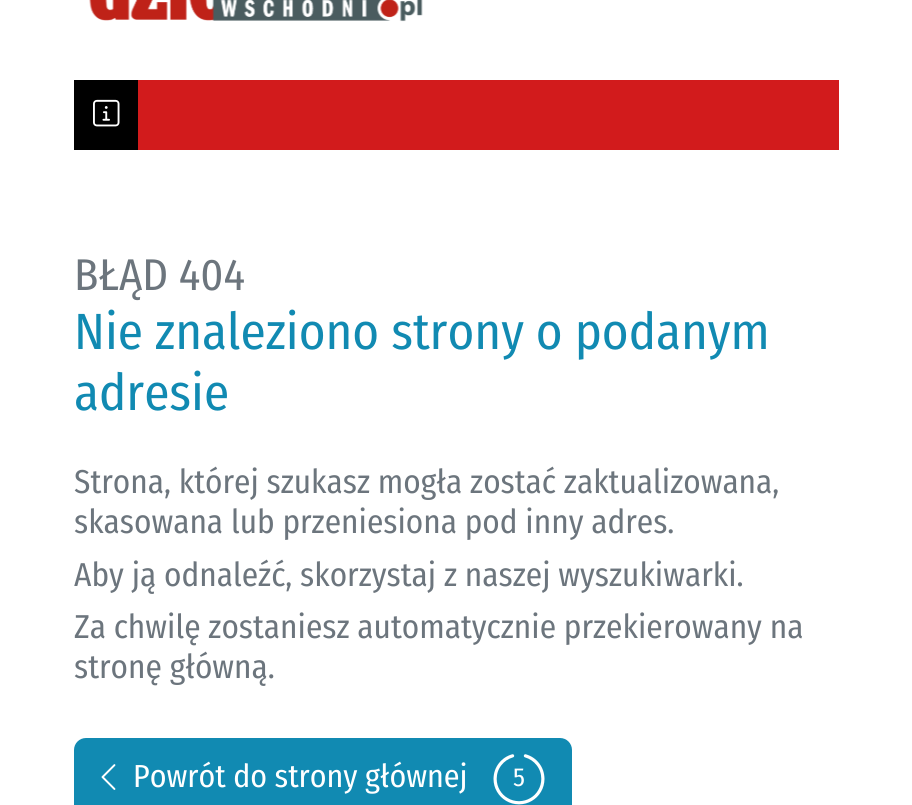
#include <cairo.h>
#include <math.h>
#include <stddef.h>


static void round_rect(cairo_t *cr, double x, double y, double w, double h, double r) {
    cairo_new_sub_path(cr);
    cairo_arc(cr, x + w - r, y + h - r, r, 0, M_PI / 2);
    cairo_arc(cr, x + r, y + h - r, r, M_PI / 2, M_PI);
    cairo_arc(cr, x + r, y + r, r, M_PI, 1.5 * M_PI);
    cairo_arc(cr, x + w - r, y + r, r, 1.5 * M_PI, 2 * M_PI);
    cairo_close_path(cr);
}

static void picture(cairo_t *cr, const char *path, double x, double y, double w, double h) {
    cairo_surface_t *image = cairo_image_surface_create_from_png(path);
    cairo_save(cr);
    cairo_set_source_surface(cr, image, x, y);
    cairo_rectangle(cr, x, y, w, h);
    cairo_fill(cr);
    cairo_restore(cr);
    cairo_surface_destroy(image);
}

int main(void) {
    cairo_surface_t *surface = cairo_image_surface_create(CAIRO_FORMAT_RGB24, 912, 805);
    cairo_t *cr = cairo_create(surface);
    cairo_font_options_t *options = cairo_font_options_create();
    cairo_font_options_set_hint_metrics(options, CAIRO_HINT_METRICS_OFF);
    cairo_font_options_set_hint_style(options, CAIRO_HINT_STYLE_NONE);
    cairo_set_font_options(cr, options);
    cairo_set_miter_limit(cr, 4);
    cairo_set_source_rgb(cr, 1, 1, 1);
    cairo_paint(cr);
    picture(cr, "img1.png", 89, 0, 334, 22);
    cairo_set_source_rgb(cr, 0.824, 0.106, 0.11);
    cairo_rectangle(cr, 138, 80, 701, 70);
    cairo_fill(cr);
    cairo_set_source_rgb(cr, 0, 0, 0);
    cairo_rectangle(cr, 74, 80, 64, 70);
    cairo_fill(cr);
    picture(cr, "img2.png", 93, 99, 27, 28);
    cairo_select_font_face(cr, "Fira Sans Condensed", CAIRO_FONT_SLANT_NORMAL, CAIRO_FONT_WEIGHT_NORMAL);
    cairo_set_font_size(cr, 44.5);
    cairo_set_source_rgb(cr, 0.424, 0.459, 0.49);
    cairo_move_to(cr, 74, 290);
    cairo_show_text(cr, "BŁĄD 404");
    cairo_set_font_size(cr, 51);
    cairo_set_source_rgb(cr, 0.067, 0.541, 0.698);
    cairo_move_to(cr, 74, 349);
    cairo_show_text(cr, "Nie znaleziono strony o podanym");
    cairo_move_to(cr, 74, 410);
    cairo_show_text(cr, "adresie");
    cairo_set_font_size(cr, 33.15);
    cairo_set_source_rgb(cr, 0.424, 0.459, 0.49);
    cairo_move_to(cr, 74, 493);
    cairo_show_text(cr, "Strona, której szukasz mogła zostać zaktualizowana,");
    cairo_move_to(cr, 74, 533);
    cairo_show_text(cr, "skasowana lub przeniesiona pod inny adres.");
    cairo_move_to(cr, 74, 586);
    cairo_show_text(cr, "Aby ją odnaleźć, skorzystaj z naszej wyszukiwarki.");
    cairo_move_to(cr, 74, 638);
    cairo_show_text(cr, "Za chwilę zostaniesz automatycznie przekierowany na");
    cairo_move_to(cr, 74, 678);
    cairo_show_text(cr, "stronę główną.");
    cairo_set_source_rgb(cr, 0.067, 0.541, 0.698);
    round_rect(cr, 75, 739, 496, 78, 11);
    cairo_fill_preserve(cr);
    cairo_stroke(cr);
    picture(cr, "img3.png", 101, 764, 15, 26);
    cairo_set_font_size(cr, 31.9);
    cairo_set_source_rgb(cr, 1, 1, 1);
    cairo_move_to(cr, 133, 787);
    cairo_show_text(cr, "Powrót do strony głównej");
    cairo_set_font_size(cr, 26);
    cairo_move_to(cr, 513, 786);
    cairo_show_text(cr, "5");
    picture(cr, "img4.png", 493, 754, 52, 51);
    cairo_surface_write_to_png(surface, "page.png");
    cairo_font_options_destroy(options);
    cairo_destroy(cr);
    cairo_surface_destroy(surface);
    return 0;
}
